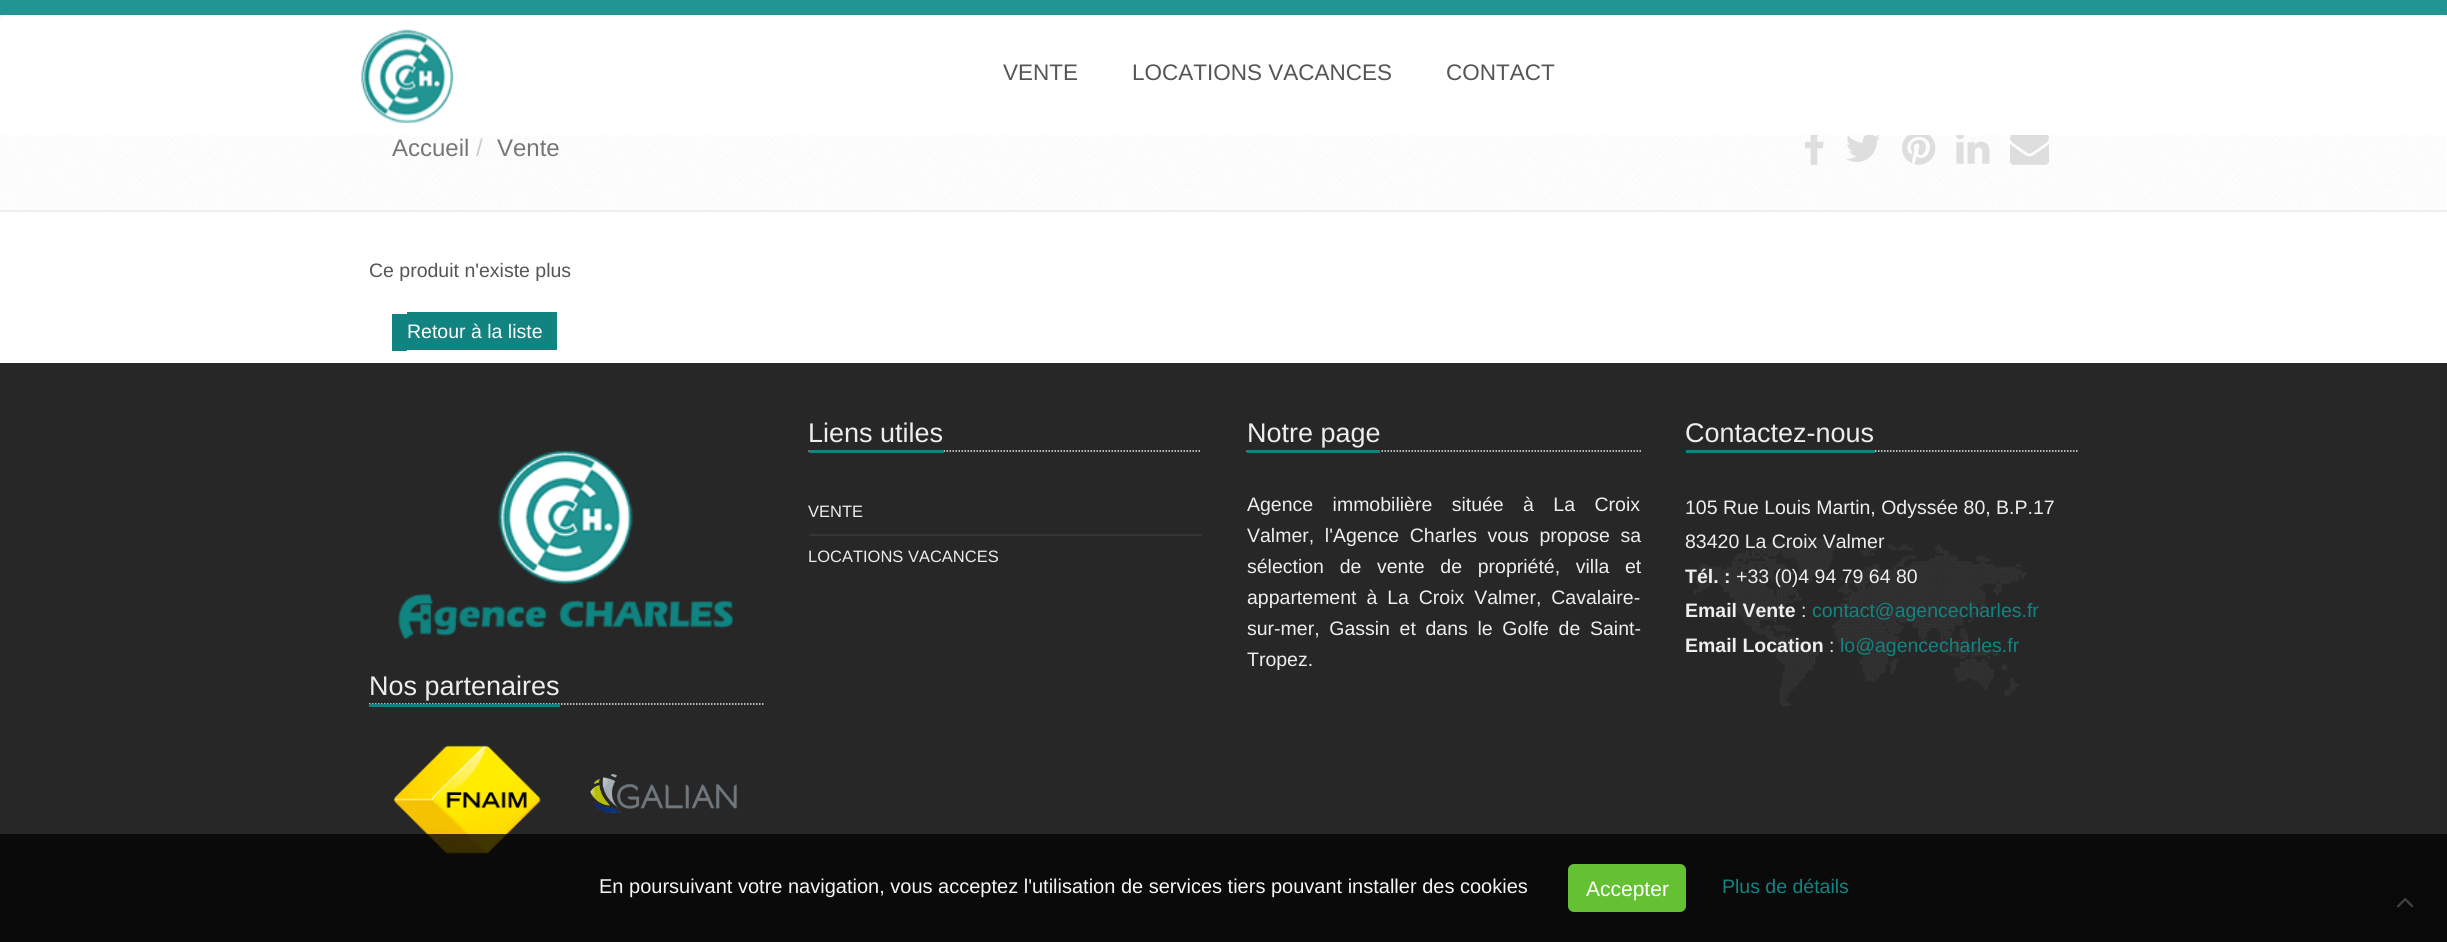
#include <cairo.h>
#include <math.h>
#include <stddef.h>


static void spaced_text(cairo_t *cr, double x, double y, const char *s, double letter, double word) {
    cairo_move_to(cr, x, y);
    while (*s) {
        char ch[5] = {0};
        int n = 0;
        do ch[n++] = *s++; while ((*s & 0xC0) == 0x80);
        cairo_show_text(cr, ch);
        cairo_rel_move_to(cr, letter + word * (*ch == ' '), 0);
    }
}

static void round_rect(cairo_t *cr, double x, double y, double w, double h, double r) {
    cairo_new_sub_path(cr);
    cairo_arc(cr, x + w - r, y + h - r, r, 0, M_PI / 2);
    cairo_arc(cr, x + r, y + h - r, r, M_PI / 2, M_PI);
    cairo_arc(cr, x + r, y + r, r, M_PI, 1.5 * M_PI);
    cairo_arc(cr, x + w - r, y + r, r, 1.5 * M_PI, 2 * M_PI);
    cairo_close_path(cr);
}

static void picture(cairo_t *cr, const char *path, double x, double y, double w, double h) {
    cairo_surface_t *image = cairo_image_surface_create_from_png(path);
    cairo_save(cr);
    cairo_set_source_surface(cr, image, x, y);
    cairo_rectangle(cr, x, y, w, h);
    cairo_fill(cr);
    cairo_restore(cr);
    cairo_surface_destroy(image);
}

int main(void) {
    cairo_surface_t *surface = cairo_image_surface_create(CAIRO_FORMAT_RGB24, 2447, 942);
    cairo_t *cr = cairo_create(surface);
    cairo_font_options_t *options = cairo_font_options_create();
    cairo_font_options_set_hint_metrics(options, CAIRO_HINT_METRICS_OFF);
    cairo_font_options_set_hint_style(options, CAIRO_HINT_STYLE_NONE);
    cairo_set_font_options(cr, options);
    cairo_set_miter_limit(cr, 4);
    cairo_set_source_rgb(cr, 1, 1, 1);
    cairo_paint(cr);
    picture(cr, "img1.png", 0, 15, 2447, 6);
    cairo_set_source_rgba(cr, 1, 1, 1, 0.96);
    cairo_rectangle(cr, 0, 15, 2447, 6);
    cairo_fill(cr);
    cairo_set_source_rgb(cr, 0.133, 0.584, 0.576);
    cairo_rectangle(cr, 0, 0, 2447, 15);
    cairo_fill(cr);
    picture(cr, "img3.png", 0, 129, 2446, 81);
    cairo_set_source_rgb(cr, 1, 1, 1);
    round_rect(cr, 0, 15, 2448, 120, 6);
    cairo_fill(cr);
    picture(cr, "img2.png", 361, 29, 93, 94);
    cairo_select_font_face(cr, "Liberation Sans", CAIRO_FONT_SLANT_NORMAL, CAIRO_FONT_WEIGHT_NORMAL);
    cairo_set_font_size(cr, 22.5);
    cairo_set_source_rgb(cr, 0.333, 0.333, 0.333);
    cairo_move_to(cr, 1003, 80);
    cairo_show_text(cr, "VENTE");
    cairo_move_to(cr, 1132, 80);
    cairo_show_text(cr, "LOCATIONS VACANCES");
    cairo_move_to(cr, 1446, 80);
    cairo_show_text(cr, "CONTACT");
    cairo_set_source_rgb(cr, 0.933, 0.933, 0.933);
    cairo_rectangle(cr, 0, 210, 2447, 2);
    cairo_fill(cr);
    cairo_set_font_size(cr, 24);
    cairo_set_source_rgb(cr, 0.467, 0.467, 0.467);
    cairo_move_to(cr, 392, 156);
    cairo_show_text(cr, "Accueil");
    cairo_set_source_rgb(cr, 0.8, 0.8, 0.8);
    cairo_move_to(cr, 476, 156);
    cairo_show_text(cr, "/");
    cairo_set_source_rgb(cr, 0.467, 0.467, 0.467);
    cairo_move_to(cr, 497, 156);
    cairo_show_text(cr, "Vente");
    picture(cr, "img4.png", 1805, 135, 19, 30);
    picture(cr, "img5.png", 1846, 135, 34, 27);
    picture(cr, "img6.png", 1902, 135, 34, 30);
    picture(cr, "img7.png", 1956, 135, 34, 29);
    picture(cr, "img8.png", 2010, 135, 39, 30);
    cairo_set_font_size(cr, 19.5);
    cairo_set_source_rgb(cr, 0.333, 0.333, 0.333);
    cairo_move_to(cr, 369, 277);
    cairo_show_text(cr, "Ce produit n'existe plus");
    cairo_set_source_rgb(cr, 0.067, 0.518, 0.506);
    cairo_rectangle(cr, 407, 312, 150, 38);
    cairo_fill(cr);
    cairo_set_source_rgb(cr, 1, 1, 1);
    cairo_move_to(cr, 407, 338);
    cairo_show_text(cr, "Retour à la liste");
    cairo_set_source_rgb(cr, 0.067, 0.518, 0.506);
    cairo_rectangle(cr, 392, 314, 15, 37);
    cairo_fill(cr);
    cairo_set_source_rgb(cr, 0.153, 0.153, 0.153);
    cairo_rectangle(cr, 0, 363, 2447, 579);
    cairo_fill(cr);
    cairo_new_path(cr);
    cairo_move_to(cr, 808.5, 451);
    cairo_line_to(cr, 1201.5, 451);
    cairo_set_source_rgb(cr, 0.894, 0.914, 0.941);
    cairo_set_line_width(cr, 1.5);
    cairo_set_dash(cr, (double[]){1.5, 1.5}, 2, 0);
    cairo_stroke(cr);
    cairo_set_source_rgb(cr, 0.067, 0.518, 0.506);
    cairo_rectangle(cr, 809, 450, 135, 3);
    cairo_fill(cr);
    cairo_set_font_size(cr, 27);
    cairo_set_source_rgb(cr, 0.933, 0.933, 0.933);
    cairo_move_to(cr, 808, 442);
    cairo_show_text(cr, "Liens utiles");
    cairo_set_font_size(cr, 16.5);
    cairo_move_to(cr, 808, 517);
    cairo_show_text(cr, "VENTE");
    cairo_set_source_rgb(cr, 0.208, 0.208, 0.208);
    cairo_rectangle(cr, 809, 534, 393, 2);
    cairo_fill(cr);
    cairo_set_source_rgb(cr, 0.933, 0.933, 0.933);
    cairo_move_to(cr, 808, 562);
    cairo_show_text(cr, "LOCATIONS VACANCES");
    cairo_new_path(cr);
    cairo_move_to(cr, 1246.5, 451);
    cairo_line_to(cr, 1641, 451);
    cairo_set_source_rgb(cr, 0.894, 0.914, 0.941);
    cairo_stroke(cr);
    cairo_set_source_rgb(cr, 0.067, 0.518, 0.506);
    cairo_rectangle(cr, 1247, 450, 133, 3);
    cairo_fill(cr);
    cairo_set_font_size(cr, 27);
    cairo_set_source_rgb(cr, 0.933, 0.933, 0.933);
    cairo_move_to(cr, 1247, 442);
    cairo_show_text(cr, "Notre page");
    cairo_set_font_size(cr, 19.5);
    spaced_text(cr, 1247, 511, "Agence immobilière située à La Croix", 0, 14);
    spaced_text(cr, 1247, 542, "Valmer, l'Agence Charles vous propose sa", 0, 5.25);
    spaced_text(cr, 1247, 573, "sélection de vente de propriété, villa et", 0, 10.25);
    spaced_text(cr, 1247, 604, "appartement à La Croix Valmer, Cavalaire-", 0, 4.5);
    spaced_text(cr, 1247, 635, "sur-mer, Gassin et dans le Golfe de Saint-", 0, 4.25);
    cairo_move_to(cr, 1247, 666);
    cairo_show_text(cr, "Tropez.");
    picture(cr, "img9.png", 1693, 539, 334, 167);
    cairo_new_path(cr);
    cairo_move_to(cr, 1686, 451);
    cairo_line_to(cr, 2079, 451);
    cairo_set_source_rgb(cr, 0.894, 0.914, 0.941);
    cairo_stroke(cr);
    cairo_set_source_rgb(cr, 0.067, 0.518, 0.506);
    cairo_rectangle(cr, 1686, 450, 189, 3);
    cairo_fill(cr);
    cairo_set_font_size(cr, 27);
    cairo_set_source_rgb(cr, 0.933, 0.933, 0.933);
    cairo_move_to(cr, 1685, 442);
    cairo_show_text(cr, "Contactez-nous");
    cairo_set_font_size(cr, 19.5);
    cairo_move_to(cr, 1685, 514);
    cairo_show_text(cr, "105 Rue Louis Martin, Odyssée 80, B.P.17");
    cairo_move_to(cr, 1685, 548);
    cairo_show_text(cr, "83420 La Croix Valmer");
    cairo_select_font_face(cr, "Liberation Sans", CAIRO_FONT_SLANT_NORMAL, CAIRO_FONT_WEIGHT_BOLD);
    cairo_move_to(cr, 1685, 583);
    cairo_show_text(cr, "Tél. :");
    cairo_select_font_face(cr, "Liberation Sans", CAIRO_FONT_SLANT_NORMAL, CAIRO_FONT_WEIGHT_NORMAL);
    cairo_move_to(cr, 1736, 583);
    cairo_show_text(cr, "+33 (0)4 94 79 64 80");
    cairo_select_font_face(cr, "Liberation Sans", CAIRO_FONT_SLANT_NORMAL, CAIRO_FONT_WEIGHT_BOLD);
    cairo_move_to(cr, 1685, 617);
    cairo_show_text(cr, "Email Vente");
    cairo_select_font_face(cr, "Liberation Sans", CAIRO_FONT_SLANT_NORMAL, CAIRO_FONT_WEIGHT_NORMAL);
    cairo_move_to(cr, 1801, 617);
    cairo_show_text(cr, ":");
    cairo_set_source_rgb(cr, 0.067, 0.518, 0.506);
    cairo_move_to(cr, 1812, 617);
    cairo_show_text(cr, "contact@agencecharles.fr");
    cairo_select_font_face(cr, "Liberation Sans", CAIRO_FONT_SLANT_NORMAL, CAIRO_FONT_WEIGHT_BOLD);
    cairo_set_source_rgb(cr, 0.933, 0.933, 0.933);
    cairo_move_to(cr, 1685, 652);
    cairo_show_text(cr, "Email Location");
    cairo_select_font_face(cr, "Liberation Sans", CAIRO_FONT_SLANT_NORMAL, CAIRO_FONT_WEIGHT_NORMAL);
    cairo_move_to(cr, 1829, 652);
    cairo_show_text(cr, ":");
    cairo_set_source_rgb(cr, 0.067, 0.518, 0.506);
    cairo_move_to(cr, 1840, 652);
    cairo_show_text(cr, "lo@agencecharles.fr");
    picture(cr, "img10.png", 398, 450, 335, 189);
    cairo_new_path(cr);
    cairo_move_to(cr, 369, 704);
    cairo_line_to(cr, 763.5, 704);
    cairo_set_source_rgb(cr, 0.894, 0.914, 0.941);
    cairo_stroke(cr);
    cairo_set_source_rgb(cr, 0.067, 0.518, 0.506);
    cairo_rectangle(cr, 369, 704, 191, 3);
    cairo_fill(cr);
    cairo_set_font_size(cr, 27);
    cairo_set_source_rgb(cr, 0.933, 0.933, 0.933);
    cairo_move_to(cr, 369, 695);
    cairo_show_text(cr, "Nos partenaires");
    picture(cr, "img11.png", 393, 745, 148, 109);
    picture(cr, "img12.png", 590, 774, 147, 39);
    cairo_set_source_rgb(cr, 0.133, 0.133, 0.133);
    round_rect(cr, 2382, 881, 45, 45, 5);
    cairo_fill(cr);
    picture(cr, "img13.png", 2396, 897, 18, 11);
    cairo_set_source_rgba(cr, 0, 0, 0, 0.75);
    cairo_rectangle(cr, 0, 834, 2447, 108);
    cairo_fill(cr);
    cairo_set_font_size(cr, 20);
    cairo_set_source_rgb(cr, 0.961, 0.961, 0.961);
    cairo_move_to(cr, 599, 893);
    cairo_show_text(cr, "En poursuivant votre navigation, vous acceptez l'utilisation de services tiers pouvant installer des cookies");
    cairo_set_source_rgb(cr, 0.388, 0.757, 0.196);
    round_rect(cr, 1568, 864, 118, 48, 6);
    cairo_fill(cr);
    cairo_set_font_size(cr, 21);
    cairo_set_source_rgb(cr, 1, 1, 1);
    cairo_move_to(cr, 1586, 896);
    cairo_show_text(cr, "Accepter");
    cairo_set_font_size(cr, 19.5);
    cairo_set_source_rgb(cr, 0.067, 0.518, 0.506);
    cairo_move_to(cr, 1722, 893);
    cairo_show_text(cr, "Plus de détails");
    cairo_surface_write_to_png(surface, "page.png");
    cairo_font_options_destroy(options);
    cairo_destroy(cr);
    cairo_surface_destroy(surface);
    return 0;
}
